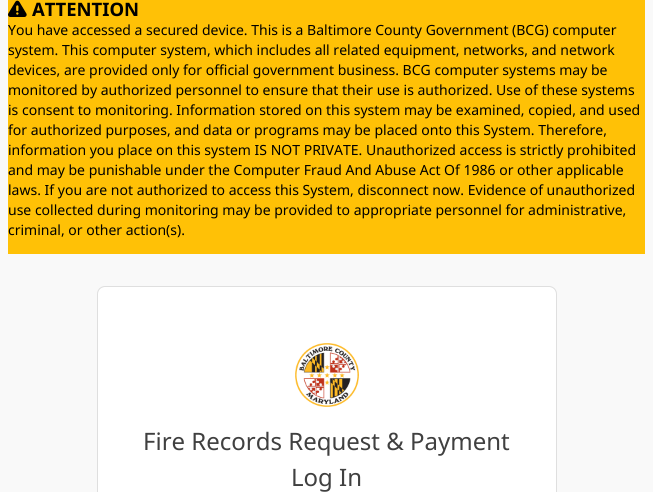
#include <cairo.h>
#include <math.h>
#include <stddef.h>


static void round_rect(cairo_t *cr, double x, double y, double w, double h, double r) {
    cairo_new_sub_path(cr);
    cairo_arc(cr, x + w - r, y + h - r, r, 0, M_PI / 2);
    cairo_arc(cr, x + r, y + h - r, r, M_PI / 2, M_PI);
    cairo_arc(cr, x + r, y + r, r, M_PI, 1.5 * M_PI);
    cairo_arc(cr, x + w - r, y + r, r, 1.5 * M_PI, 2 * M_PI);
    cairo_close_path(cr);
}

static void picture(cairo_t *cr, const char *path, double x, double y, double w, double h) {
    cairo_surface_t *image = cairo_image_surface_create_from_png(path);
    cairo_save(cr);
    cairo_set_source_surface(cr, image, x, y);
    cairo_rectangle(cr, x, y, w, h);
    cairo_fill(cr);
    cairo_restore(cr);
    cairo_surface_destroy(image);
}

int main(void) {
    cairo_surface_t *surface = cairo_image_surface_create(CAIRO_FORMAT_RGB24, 653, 492);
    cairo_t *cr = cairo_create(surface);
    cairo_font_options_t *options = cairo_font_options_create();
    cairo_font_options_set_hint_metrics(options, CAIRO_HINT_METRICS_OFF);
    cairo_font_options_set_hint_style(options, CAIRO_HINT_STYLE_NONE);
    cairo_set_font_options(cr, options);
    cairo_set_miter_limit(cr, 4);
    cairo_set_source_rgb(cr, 0.973, 0.973, 0.973);
    cairo_paint(cr);
    cairo_set_source_rgb(cr, 1, 0.757, 0.027);
    cairo_rectangle(cr, 8, 0, 637, 254);
    cairo_fill(cr);
    picture(cr, "img1.png", 8, 0, 19, 17);
    cairo_select_font_face(cr, "Noto Sans", CAIRO_FONT_SLANT_NORMAL, CAIRO_FONT_WEIGHT_BOLD);
    cairo_set_font_size(cr, 18.5);
    cairo_set_source_rgb(cr, 0, 0, 0);
    cairo_move_to(cr, 32, 16);
    cairo_show_text(cr, "ATTENTION");
    cairo_select_font_face(cr, "Noto Sans", CAIRO_FONT_SLANT_NORMAL, CAIRO_FONT_WEIGHT_NORMAL);
    cairo_set_font_size(cr, 14);
    cairo_move_to(cr, 8, 35);
    cairo_show_text(cr, "You have accessed a secured device. This is a Baltimore County Government (BCG) computer");
    cairo_move_to(cr, 8, 55);
    cairo_show_text(cr, "system. This computer system, which includes all related equipment, networks, and network");
    cairo_move_to(cr, 8, 75);
    cairo_show_text(cr, "devices, are provided only for official government business. BCG computer systems may be");
    cairo_move_to(cr, 8, 95);
    cairo_show_text(cr, "monitored by authorized personnel to ensure that their use is authorized. Use of these systems");
    cairo_move_to(cr, 8, 115);
    cairo_show_text(cr, "is consent to monitoring. Information stored on this system may be examined, copied, and used");
    cairo_move_to(cr, 8, 135);
    cairo_show_text(cr, "for authorized purposes, and data or programs may be placed onto this System. Therefore,");
    cairo_move_to(cr, 8, 155);
    cairo_show_text(cr, "information you place on this system IS NOT PRIVATE. Unauthorized access is strictly prohibited");
    cairo_move_to(cr, 8, 175);
    cairo_show_text(cr, "and may be punishable under the Computer Fraud And Abuse Act Of 1986 or other applicable");
    cairo_move_to(cr, 8, 195);
    cairo_show_text(cr, "laws. If you are not authorized to access this System, disconnect now. Evidence of unauthorized");
    cairo_move_to(cr, 8, 215);
    cairo_show_text(cr, "use collected during monitoring may be provided to appropriate personnel for administrative,");
    cairo_move_to(cr, 8, 235);
    cairo_show_text(cr, "criminal, or other action(s).");
    cairo_set_source_rgb(cr, 1, 1, 1);
    round_rect(cr, 98, 287, 458, 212, 7);
    cairo_fill(cr);
    round_rect(cr, 97.5, 286.5, 459, 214, 7.5);
    cairo_set_source_rgb(cr, 0.875, 0.875, 0.875);
    cairo_set_line_width(cr, 1);
    cairo_stroke(cr);
    picture(cr, "img2.png", 295, 343, 64, 64);
    cairo_set_font_size(cr, 24);
    cairo_set_source_rgb(cr, 0.251, 0.251, 0.251);
    cairo_move_to(cr, 143, 450);
    cairo_show_text(cr, "Fire Records Request & Payment");
    cairo_move_to(cr, 291, 486);
    cairo_show_text(cr, "Log In");
    cairo_surface_write_to_png(surface, "page.png");
    cairo_font_options_destroy(options);
    cairo_destroy(cr);
    cairo_surface_destroy(surface);
    return 0;
}
